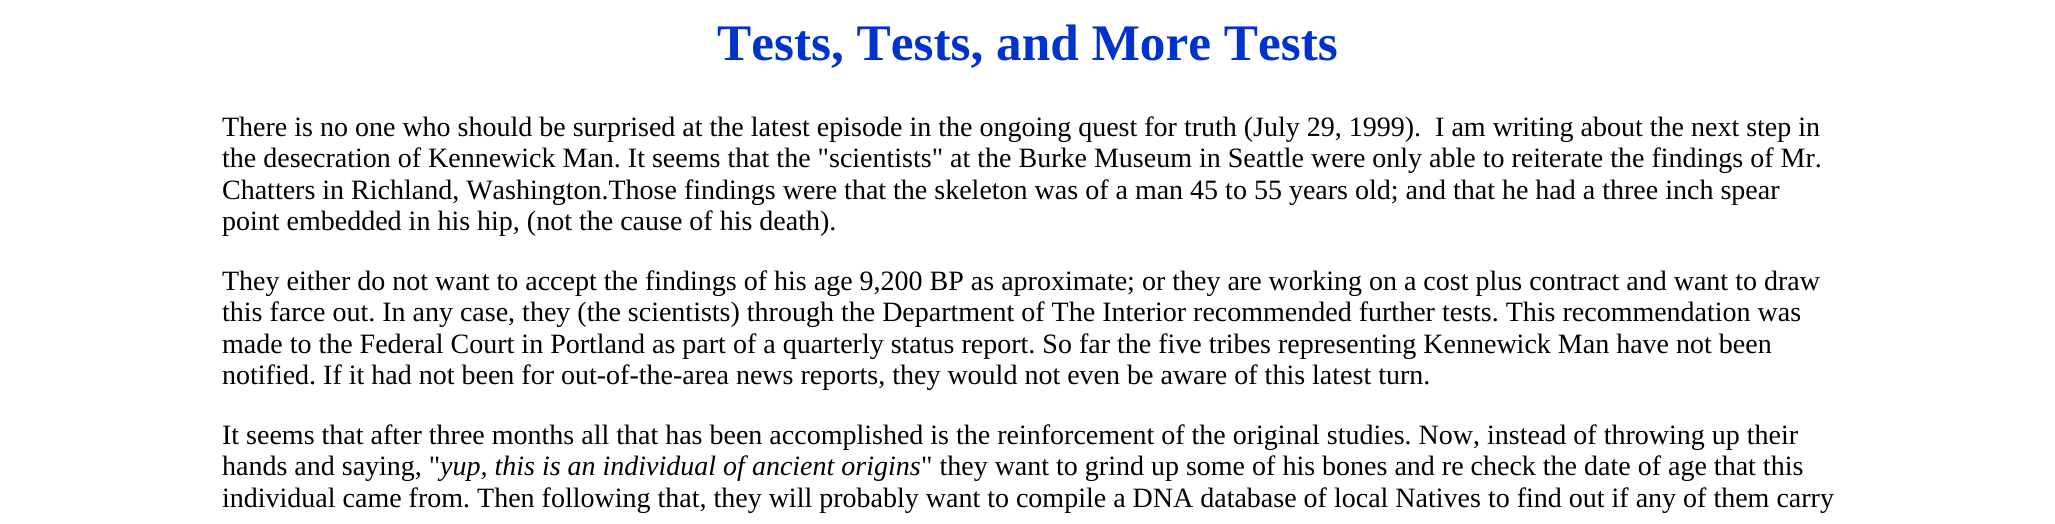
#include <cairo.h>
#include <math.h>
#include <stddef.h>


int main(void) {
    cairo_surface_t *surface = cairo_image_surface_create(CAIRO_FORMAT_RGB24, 2055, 524);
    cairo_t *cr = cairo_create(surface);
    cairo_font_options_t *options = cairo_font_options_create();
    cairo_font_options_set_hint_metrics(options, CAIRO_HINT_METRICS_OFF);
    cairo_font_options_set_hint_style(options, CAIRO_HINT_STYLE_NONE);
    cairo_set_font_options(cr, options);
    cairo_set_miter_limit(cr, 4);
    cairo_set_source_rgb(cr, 1, 1, 1);
    cairo_paint(cr);
    cairo_select_font_face(cr, "Liberation Serif", CAIRO_FONT_SLANT_NORMAL, CAIRO_FONT_WEIGHT_BOLD);
    cairo_set_font_size(cr, 51.25);
    cairo_set_source_rgb(cr, 0, 0.2, 0.8);
    cairo_move_to(cr, 717, 60);
    cairo_show_text(cr, "Tests, Tests, and More Tests");
    cairo_select_font_face(cr, "Liberation Serif", CAIRO_FONT_SLANT_NORMAL, CAIRO_FONT_WEIGHT_NORMAL);
    cairo_set_font_size(cr, 28);
    cairo_set_source_rgb(cr, 0, 0, 0);
    cairo_move_to(cr, 222, 136);
    cairo_show_text(cr, "There is no one who should be surprised at the latest episode in the ongoing quest for truth (July 29, 1999).  I am writing about the next step in");
    cairo_move_to(cr, 222, 167);
    cairo_show_text(cr, "the desecration of Kennewick Man. It seems that the \"scientists\" at the Burke Museum in Seattle were only able to reiterate the findings of Mr.");
    cairo_move_to(cr, 222, 199);
    cairo_show_text(cr, "Chatters in Richland, Washington.Those findings were that the skeleton was of a man 45 to 55 years old; and that he had a three inch spear");
    cairo_move_to(cr, 222, 230);
    cairo_show_text(cr, "point embedded in his hip, (not the cause of his death).");
    cairo_move_to(cr, 222, 290);
    cairo_show_text(cr, "They either do not want to accept the findings of his age 9,200 BP as aproximate; or they are working on a cost plus contract and want to draw");
    cairo_move_to(cr, 222, 321);
    cairo_show_text(cr, "this farce out. In any case, they (the scientists) through the Department of The Interior recommended further tests. This recommendation was");
    cairo_move_to(cr, 222, 353);
    cairo_show_text(cr, "made to the Federal Court in Portland as part of a quarterly status report. So far the five tribes representing Kennewick Man have not been");
    cairo_move_to(cr, 222, 384);
    cairo_show_text(cr, "notified. If it had not been for out-of-the-area news reports, they would not even be aware of this latest turn.");
    cairo_move_to(cr, 222, 444);
    cairo_show_text(cr, "It seems that after three months all that has been accomplished is the reinforcement of the original studies. Now, instead of throwing up their");
    cairo_move_to(cr, 222, 475);
    cairo_show_text(cr, "hands and saying, \"");
    cairo_select_font_face(cr, "Liberation Serif", CAIRO_FONT_SLANT_ITALIC, CAIRO_FONT_WEIGHT_NORMAL);
    cairo_move_to(cr, 440, 475);
    cairo_show_text(cr, "yup, this is an individual of ancient origins");
    cairo_select_font_face(cr, "Liberation Serif", CAIRO_FONT_SLANT_NORMAL, CAIRO_FONT_WEIGHT_NORMAL);
    cairo_move_to(cr, 921, 475);
    cairo_show_text(cr, "\" they want to grind up some of his bones and re check the date of age that this");
    cairo_move_to(cr, 222, 507);
    cairo_show_text(cr, "individual came from. Then following that, they will probably want to compile a DNA database of local Natives to find out if any of them carry");
    cairo_surface_write_to_png(surface, "page.png");
    cairo_font_options_destroy(options);
    cairo_destroy(cr);
    cairo_surface_destroy(surface);
    return 0;
}
